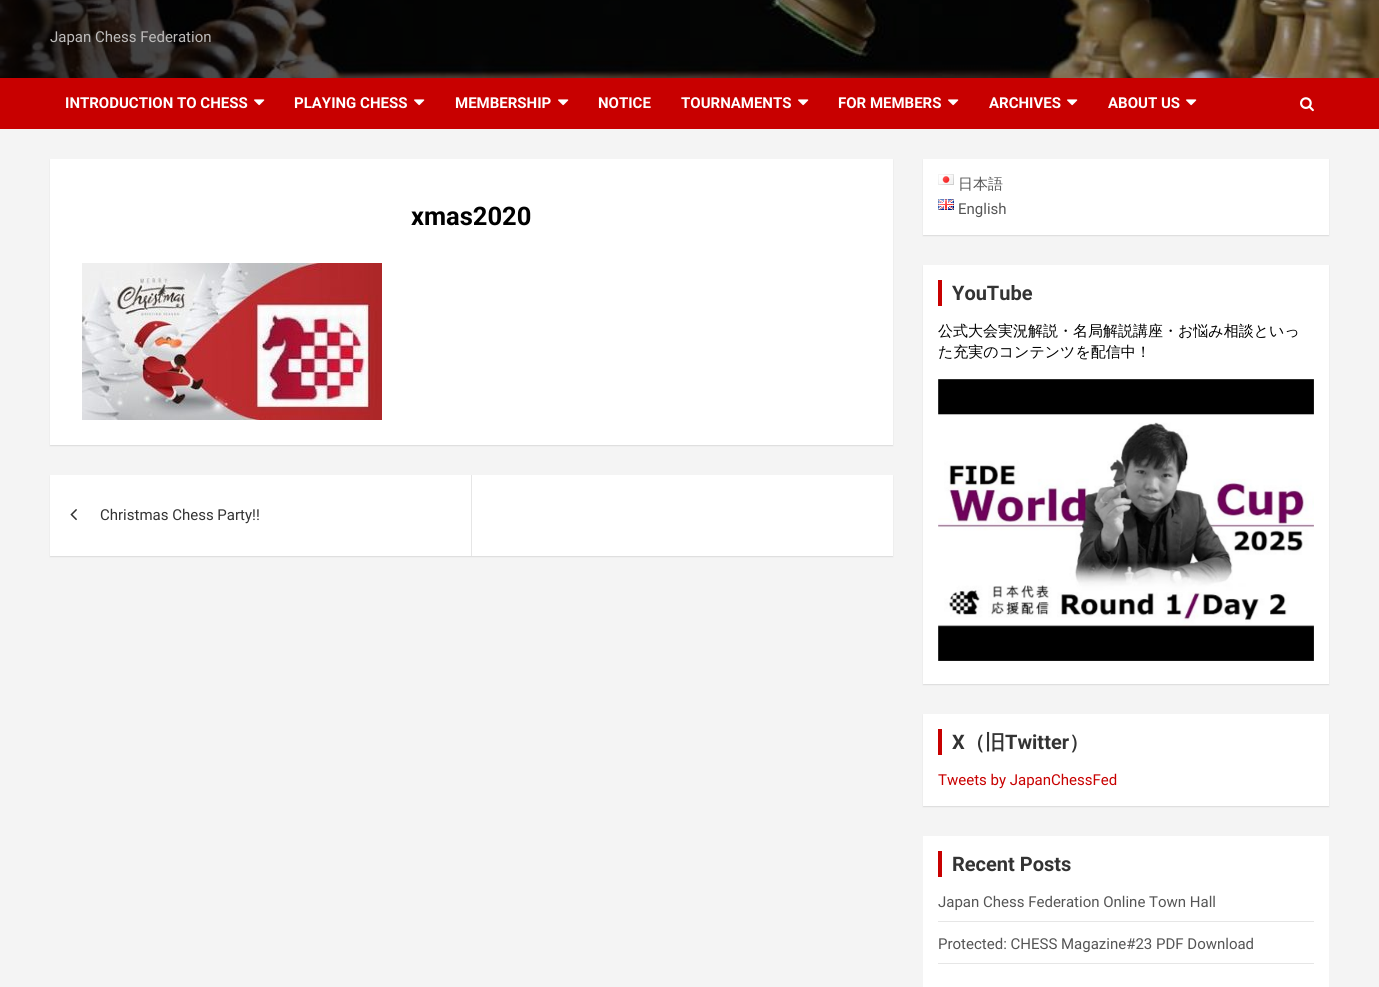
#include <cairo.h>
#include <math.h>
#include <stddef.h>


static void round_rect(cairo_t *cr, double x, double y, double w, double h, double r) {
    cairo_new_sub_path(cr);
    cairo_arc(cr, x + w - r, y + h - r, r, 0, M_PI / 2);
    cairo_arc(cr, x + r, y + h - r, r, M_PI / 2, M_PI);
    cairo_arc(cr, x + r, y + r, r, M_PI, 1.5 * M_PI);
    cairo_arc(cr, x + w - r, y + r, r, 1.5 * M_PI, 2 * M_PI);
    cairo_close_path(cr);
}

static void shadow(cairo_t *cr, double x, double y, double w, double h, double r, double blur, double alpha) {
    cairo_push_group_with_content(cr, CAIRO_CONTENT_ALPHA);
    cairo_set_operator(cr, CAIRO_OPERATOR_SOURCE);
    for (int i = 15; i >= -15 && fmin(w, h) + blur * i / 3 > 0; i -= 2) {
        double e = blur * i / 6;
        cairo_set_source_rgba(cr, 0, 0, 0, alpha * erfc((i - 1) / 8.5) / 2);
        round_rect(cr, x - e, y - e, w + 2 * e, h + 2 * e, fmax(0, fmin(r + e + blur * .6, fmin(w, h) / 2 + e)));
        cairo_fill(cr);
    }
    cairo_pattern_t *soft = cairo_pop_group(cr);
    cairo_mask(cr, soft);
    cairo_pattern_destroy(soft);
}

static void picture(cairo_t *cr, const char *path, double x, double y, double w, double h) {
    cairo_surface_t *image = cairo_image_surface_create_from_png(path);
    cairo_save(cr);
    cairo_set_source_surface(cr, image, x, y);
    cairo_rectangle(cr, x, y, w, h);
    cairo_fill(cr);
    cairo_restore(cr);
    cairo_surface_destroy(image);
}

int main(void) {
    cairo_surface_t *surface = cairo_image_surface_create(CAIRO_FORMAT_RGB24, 1379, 987);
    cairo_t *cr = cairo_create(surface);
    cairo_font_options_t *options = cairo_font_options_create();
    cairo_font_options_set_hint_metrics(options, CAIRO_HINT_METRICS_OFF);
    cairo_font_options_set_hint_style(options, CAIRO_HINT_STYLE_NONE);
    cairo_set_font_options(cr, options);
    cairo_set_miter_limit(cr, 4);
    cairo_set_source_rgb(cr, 0.957, 0.957, 0.957);
    cairo_paint(cr);
    picture(cr, "img1.png", 0, 0, 1379, 78);
    cairo_select_font_face(cr, "Roboto", CAIRO_FONT_SLANT_NORMAL, CAIRO_FONT_WEIGHT_NORMAL);
    cairo_set_font_size(cr, 15);
    cairo_set_source_rgb(cr, 0.745, 0.737, 0.733);
    cairo_move_to(cr, 50, 42);
    cairo_show_text(cr, "Japan Chess Federation");
    cairo_set_source_rgb(cr, 0.784, 0, 0);
    cairo_rectangle(cr, 0, 78, 1379, 51);
    cairo_fill(cr);
    cairo_select_font_face(cr, "Roboto", CAIRO_FONT_SLANT_NORMAL, CAIRO_FONT_WEIGHT_BOLD);
    cairo_set_source_rgb(cr, 1, 1, 1);
    cairo_move_to(cr, 65, 108);
    cairo_show_text(cr, "INTRODUCTION TO CHESS");
    picture(cr, "img2.png", 254, 99, 11, 7);
    cairo_move_to(cr, 294, 108);
    cairo_show_text(cr, "PLAYING CHESS");
    picture(cr, "img2.png", 414, 99, 11, 7);
    cairo_move_to(cr, 455, 108);
    cairo_show_text(cr, "MEMBERSHIP");
    picture(cr, "img2.png", 558, 99, 11, 7);
    cairo_move_to(cr, 598, 108);
    cairo_show_text(cr, "NOTICE");
    cairo_move_to(cr, 681, 108);
    cairo_show_text(cr, "TOURNAMENTS");
    picture(cr, "img2.png", 798, 99, 11, 7);
    cairo_move_to(cr, 838, 108);
    cairo_show_text(cr, "FOR MEMBERS");
    picture(cr, "img2.png", 948, 99, 11, 7);
    cairo_move_to(cr, 989, 108);
    cairo_show_text(cr, "ARCHIVES");
    picture(cr, "img2.png", 1067, 99, 11, 7);
    cairo_move_to(cr, 1108, 108);
    cairo_show_text(cr, "ABOUT US");
    picture(cr, "img2.png", 1186, 99, 11, 7);
    picture(cr, "img3.png", 1300, 97, 14, 15);
    cairo_set_source_rgb(cr, 0, 0, 0);
    shadow(cr, 50, 160, 843, 286, 0, 0.5, 0.1);
    cairo_set_source_rgb(cr, 1, 1, 1);
    cairo_rectangle(cr, 50, 159, 843, 286);
    cairo_fill(cr);
    cairo_set_font_size(cr, 25.5);
    cairo_set_source_rgb(cr, 0, 0, 0);
    cairo_move_to(cr, 411, 225);
    cairo_show_text(cr, "xmas2020");
    picture(cr, "img4.png", 82, 263, 300, 157);
    cairo_set_source_rgb(cr, 0, 0, 0);
    shadow(cr, 50, 476, 843, 81, 0, 0.5, 0.1);
    cairo_set_source_rgb(cr, 1, 1, 1);
    cairo_rectangle(cr, 50, 475, 843, 81);
    cairo_fill(cr);
    picture(cr, "img5.png", 70, 509, 7, 12);
    cairo_select_font_face(cr, "Roboto", CAIRO_FONT_SLANT_NORMAL, CAIRO_FONT_WEIGHT_NORMAL);
    cairo_set_font_size(cr, 15);
    cairo_set_source_rgb(cr, 0.2, 0.2, 0.2);
    cairo_move_to(cr, 100, 520);
    cairo_show_text(cr, "Christmas Chess Party!!");
    cairo_set_source_rgb(cr, 0.902, 0.902, 0.902);
    cairo_rectangle(cr, 471, 475, 1, 81);
    cairo_fill(cr);
    cairo_set_source_rgb(cr, 0, 0, 0);
    shadow(cr, 923, 160, 406, 76, 0, 0.5, 0.1);
    cairo_set_source_rgb(cr, 1, 1, 1);
    cairo_rectangle(cr, 923, 159, 406, 76);
    cairo_fill(cr);
    picture(cr, "img6.png", 938, 174, 16, 11);
    cairo_select_font_face(cr, "WenQuanYi Zen Hei Medium", CAIRO_FONT_SLANT_NORMAL, CAIRO_FONT_WEIGHT_NORMAL);
    cairo_set_source_rgb(cr, 0.333, 0.333, 0.333);
    cairo_move_to(cr, 958, 189);
    cairo_show_text(cr, "日本語");
    picture(cr, "img7.png", 938, 199, 16, 11);
    cairo_select_font_face(cr, "Roboto", CAIRO_FONT_SLANT_NORMAL, CAIRO_FONT_WEIGHT_NORMAL);
    cairo_move_to(cr, 958, 214);
    cairo_show_text(cr, "English");
    cairo_set_source_rgb(cr, 0, 0, 0);
    shadow(cr, 923, 266, 406, 419, 0, 0.5, 0.1);
    cairo_set_source_rgb(cr, 1, 1, 1);
    cairo_rectangle(cr, 923, 265, 406, 419);
    cairo_fill(cr);
    cairo_set_source_rgb(cr, 0.784, 0, 0);
    cairo_rectangle(cr, 938, 280, 4, 26);
    cairo_fill(cr);
    cairo_select_font_face(cr, "Roboto", CAIRO_FONT_SLANT_NORMAL, CAIRO_FONT_WEIGHT_BOLD);
    cairo_set_font_size(cr, 20);
    cairo_set_source_rgb(cr, 0.2, 0.2, 0.2);
    cairo_move_to(cr, 952, 300);
    cairo_show_text(cr, "YouTube");
    cairo_select_font_face(cr, "WenQuanYi Zen Hei Medium", CAIRO_FONT_SLANT_NORMAL, CAIRO_FONT_WEIGHT_NORMAL);
    cairo_set_font_size(cr, 15);
    cairo_set_source_rgb(cr, 0, 0, 0);
    cairo_move_to(cr, 938, 336);
    cairo_show_text(cr, "公式大会実況解説・名局解説講座・お悩み相談といっ");
    cairo_move_to(cr, 938, 357);
    cairo_show_text(cr, "た充実のコンテンツを配信中！");
    picture(cr, "img8.png", 938, 379, 376, 282);
    cairo_set_source_rgb(cr, 0, 0, 0);
    shadow(cr, 923, 715, 406, 92, 0, 0.5, 0.1);
    cairo_set_source_rgb(cr, 1, 1, 1);
    cairo_rectangle(cr, 923, 714, 406, 92);
    cairo_fill(cr);
    cairo_set_source_rgb(cr, 0.784, 0, 0);
    cairo_rectangle(cr, 938, 729, 4, 26);
    cairo_fill(cr);
    cairo_select_font_face(cr, "Roboto", CAIRO_FONT_SLANT_NORMAL, CAIRO_FONT_WEIGHT_BOLD);
    cairo_set_font_size(cr, 20);
    cairo_set_source_rgb(cr, 0.2, 0.2, 0.2);
    cairo_move_to(cr, 952, 749);
    cairo_show_text(cr, "X");
    cairo_select_font_face(cr, "WenQuanYi Zen Hei", CAIRO_FONT_SLANT_NORMAL, CAIRO_FONT_WEIGHT_BOLD);
    cairo_move_to(cr, 965, 749);
    cairo_show_text(cr, "（旧");
    cairo_select_font_face(cr, "Roboto", CAIRO_FONT_SLANT_NORMAL, CAIRO_FONT_WEIGHT_BOLD);
    cairo_move_to(cr, 1005, 749);
    cairo_show_text(cr, "Twitter");
    cairo_select_font_face(cr, "WenQuanYi Zen Hei", CAIRO_FONT_SLANT_NORMAL, CAIRO_FONT_WEIGHT_BOLD);
    cairo_move_to(cr, 1069, 749);
    cairo_show_text(cr, "）");
    cairo_select_font_face(cr, "Roboto", CAIRO_FONT_SLANT_NORMAL, CAIRO_FONT_WEIGHT_NORMAL);
    cairo_set_font_size(cr, 15);
    cairo_set_source_rgb(cr, 0.784, 0, 0);
    cairo_move_to(cr, 938, 785);
    cairo_show_text(cr, "Tweets by JapanChessFed");
    cairo_set_source_rgb(cr, 1, 1, 1);
    cairo_rectangle(cr, 923, 836, 406, 151);
    cairo_fill(cr);
    cairo_set_source_rgb(cr, 0.784, 0, 0);
    cairo_rectangle(cr, 938, 851, 4, 26);
    cairo_fill(cr);
    cairo_select_font_face(cr, "Roboto", CAIRO_FONT_SLANT_NORMAL, CAIRO_FONT_WEIGHT_BOLD);
    cairo_set_font_size(cr, 20);
    cairo_set_source_rgb(cr, 0.2, 0.2, 0.2);
    cairo_move_to(cr, 952, 871);
    cairo_show_text(cr, "Recent Posts");
    cairo_set_source_rgb(cr, 0.902, 0.902, 0.902);
    cairo_rectangle(cr, 938, 921, 376, 1);
    cairo_fill(cr);
    cairo_select_font_face(cr, "Roboto", CAIRO_FONT_SLANT_NORMAL, CAIRO_FONT_WEIGHT_NORMAL);
    cairo_set_font_size(cr, 15);
    cairo_set_source_rgb(cr, 0.333, 0.333, 0.333);
    cairo_move_to(cr, 938, 907);
    cairo_show_text(cr, "Japan Chess Federation Online Town Hall");
    cairo_set_source_rgb(cr, 0.902, 0.902, 0.902);
    cairo_rectangle(cr, 938, 963, 376, 1);
    cairo_fill(cr);
    cairo_set_source_rgb(cr, 0.333, 0.333, 0.333);
    cairo_move_to(cr, 938, 949);
    cairo_show_text(cr, "Protected: CHESS Magazine#23 PDF Download");
    cairo_surface_write_to_png(surface, "page.png");
    cairo_font_options_destroy(options);
    cairo_destroy(cr);
    cairo_surface_destroy(surface);
    return 0;
}
